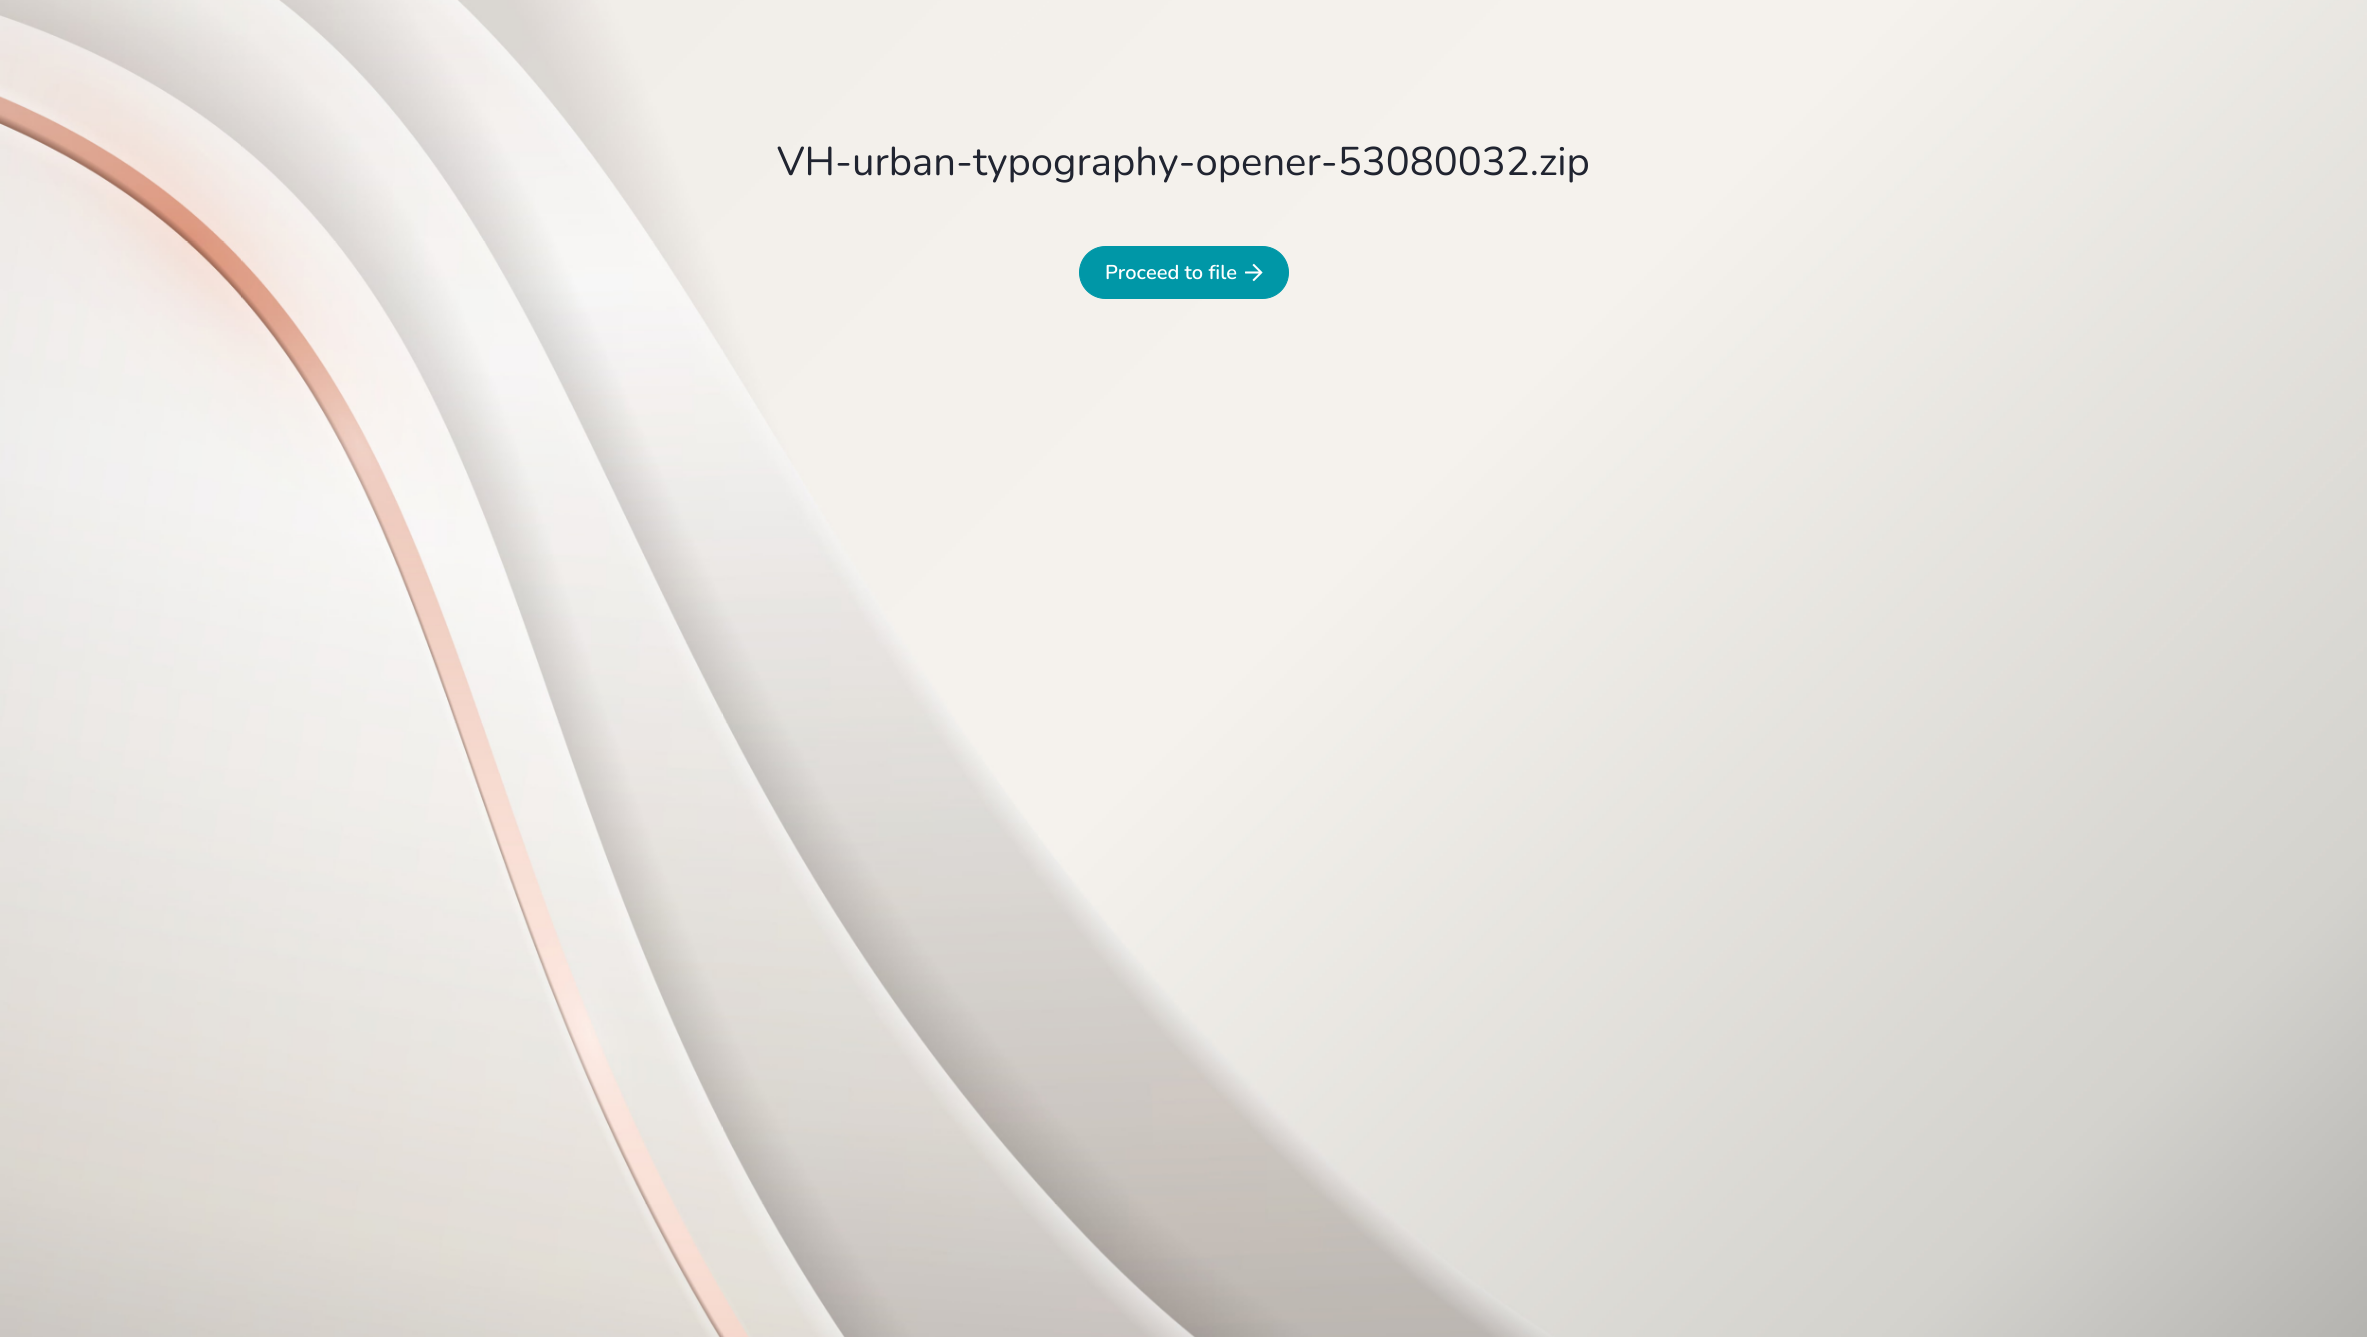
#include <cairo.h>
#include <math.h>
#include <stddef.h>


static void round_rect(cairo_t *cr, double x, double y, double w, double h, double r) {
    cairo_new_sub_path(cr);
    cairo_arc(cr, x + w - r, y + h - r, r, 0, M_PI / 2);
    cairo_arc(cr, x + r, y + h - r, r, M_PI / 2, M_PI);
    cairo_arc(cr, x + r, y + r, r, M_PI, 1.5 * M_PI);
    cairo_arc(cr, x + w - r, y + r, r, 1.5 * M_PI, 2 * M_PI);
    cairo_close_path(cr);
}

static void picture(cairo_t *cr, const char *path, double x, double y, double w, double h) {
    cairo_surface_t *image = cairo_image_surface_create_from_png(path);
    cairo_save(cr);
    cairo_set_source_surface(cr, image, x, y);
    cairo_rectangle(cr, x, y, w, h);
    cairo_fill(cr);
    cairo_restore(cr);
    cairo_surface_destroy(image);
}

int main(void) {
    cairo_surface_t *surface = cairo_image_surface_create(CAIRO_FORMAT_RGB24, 2367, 1337);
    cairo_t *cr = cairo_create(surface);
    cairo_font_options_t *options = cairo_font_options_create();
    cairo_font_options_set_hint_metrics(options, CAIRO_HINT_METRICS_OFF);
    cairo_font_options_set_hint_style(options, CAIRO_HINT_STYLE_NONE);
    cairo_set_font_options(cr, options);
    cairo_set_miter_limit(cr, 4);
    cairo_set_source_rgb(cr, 1, 1, 1);
    cairo_paint(cr);
    picture(cr, "img1.png", 0, 0, 2367, 1337);
    cairo_select_font_face(cr, "Nunito", CAIRO_FONT_SLANT_NORMAL, CAIRO_FONT_WEIGHT_NORMAL);
    cairo_set_font_size(cr, 40);
    cairo_set_source_rgb(cr, 0.125, 0.141, 0.188);
    cairo_move_to(cr, 777, 175);
    cairo_show_text(cr, "VH-urban-typography-opener-53080032.zip");
    cairo_set_source_rgb(cr, 0, 0.592, 0.655);
    round_rect(cr, 1079.5, 246.5, 209, 52, 26);
    cairo_fill_preserve(cr);
    cairo_set_line_width(cr, 1);
    cairo_stroke(cr);
    cairo_select_font_face(cr, "Nunito SemiBold", CAIRO_FONT_SLANT_NORMAL, CAIRO_FONT_WEIGHT_NORMAL);
    cairo_set_font_size(cr, 20);
    cairo_set_source_rgb(cr, 1, 1, 1);
    cairo_move_to(cr, 1105, 279);
    cairo_show_text(cr, "Proceed to file");
    picture(cr, "img2.png", 1245, 263, 18, 19);
    cairo_surface_write_to_png(surface, "page.png");
    cairo_font_options_destroy(options);
    cairo_destroy(cr);
    cairo_surface_destroy(surface);
    return 0;
}
